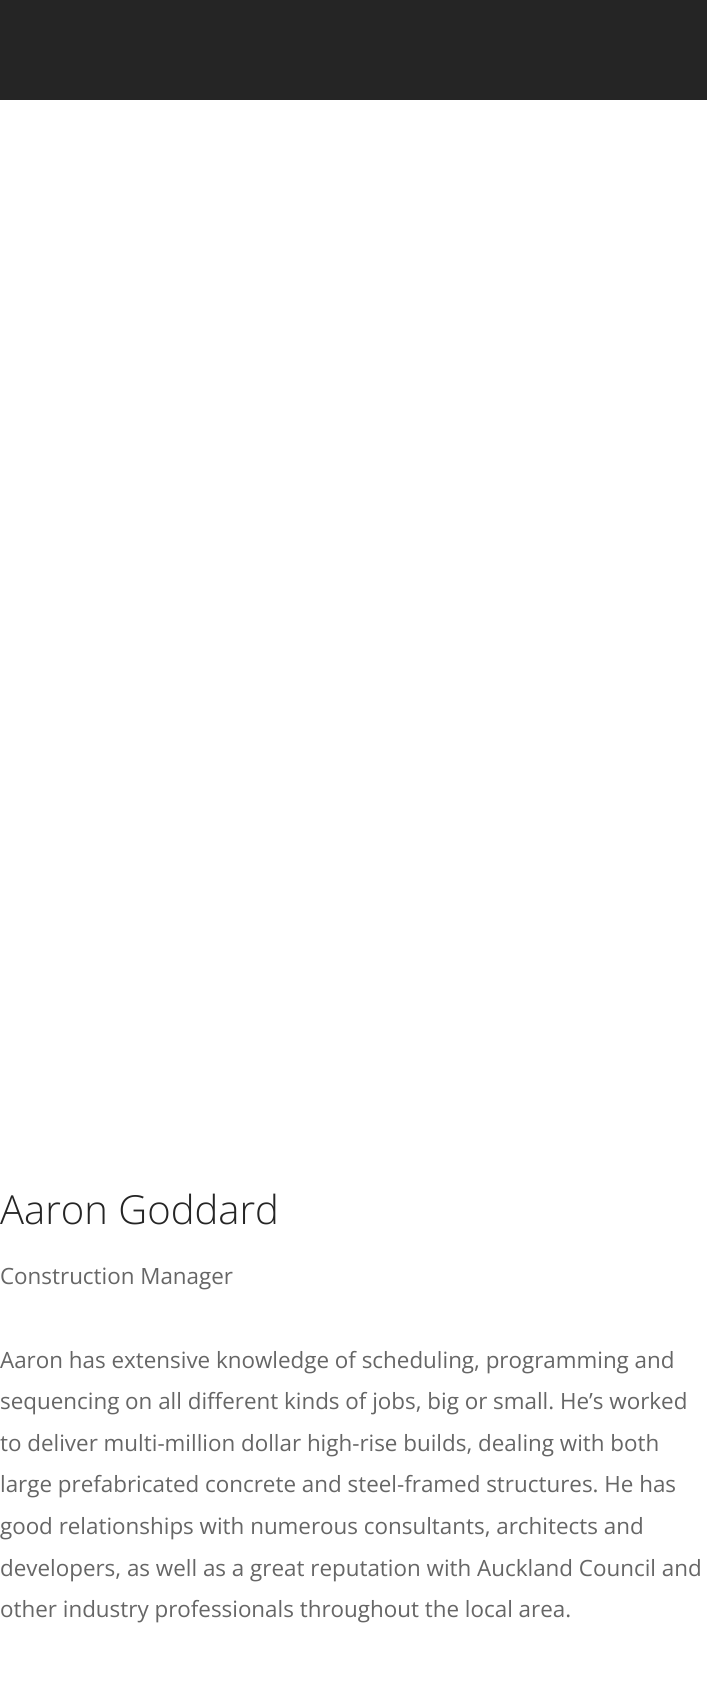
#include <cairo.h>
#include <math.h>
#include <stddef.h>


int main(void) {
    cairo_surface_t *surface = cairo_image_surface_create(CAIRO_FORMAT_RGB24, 707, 1684);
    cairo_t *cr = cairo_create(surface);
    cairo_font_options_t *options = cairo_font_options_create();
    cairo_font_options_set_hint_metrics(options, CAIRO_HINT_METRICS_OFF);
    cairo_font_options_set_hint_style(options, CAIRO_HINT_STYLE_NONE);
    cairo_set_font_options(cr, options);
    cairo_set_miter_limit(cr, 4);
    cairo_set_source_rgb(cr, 1, 1, 1);
    cairo_paint(cr);
    cairo_set_source_rgb(cr, 0.145, 0.145, 0.145);
    cairo_rectangle(cr, 0, 0, 707, 100);
    cairo_fill(cr);
    cairo_select_font_face(cr, "Open Sans Light", CAIRO_FONT_SLANT_NORMAL, CAIRO_FONT_WEIGHT_NORMAL);
    cairo_set_font_size(cr, 40);
    cairo_move_to(cr, 0, 1224);
    cairo_show_text(cr, "Aaron Goddard");
    cairo_select_font_face(cr, "Open Sans", CAIRO_FONT_SLANT_NORMAL, CAIRO_FONT_WEIGHT_NORMAL);
    cairo_set_font_size(cr, 22.4);
    cairo_set_source_rgb(cr, 0.4, 0.4, 0.4);
    cairo_move_to(cr, 0, 1284);
    cairo_show_text(cr, "Construction Manager");
    cairo_move_to(cr, 0, 1368);
    cairo_show_text(cr, "Aaron has extensive knowledge of scheduling, programming and");
    cairo_move_to(cr, 0, 1409);
    cairo_show_text(cr, "sequencing on all different kinds of jobs, big or small. He’s worked");
    cairo_move_to(cr, 0, 1451);
    cairo_show_text(cr, "to deliver multi-million dollar high-rise builds, dealing with both");
    cairo_move_to(cr, 0, 1492);
    cairo_show_text(cr, "large prefabricated concrete and steel-framed structures. He has");
    cairo_move_to(cr, 0, 1534);
    cairo_show_text(cr, "good relationships with numerous consultants, architects and");
    cairo_move_to(cr, 0, 1576);
    cairo_show_text(cr, "developers, as well as a great reputation with Auckland Council and");
    cairo_move_to(cr, 0, 1617);
    cairo_show_text(cr, "other industry professionals throughout the local area.");
    cairo_surface_write_to_png(surface, "page.png");
    cairo_font_options_destroy(options);
    cairo_destroy(cr);
    cairo_surface_destroy(surface);
    return 0;
}
